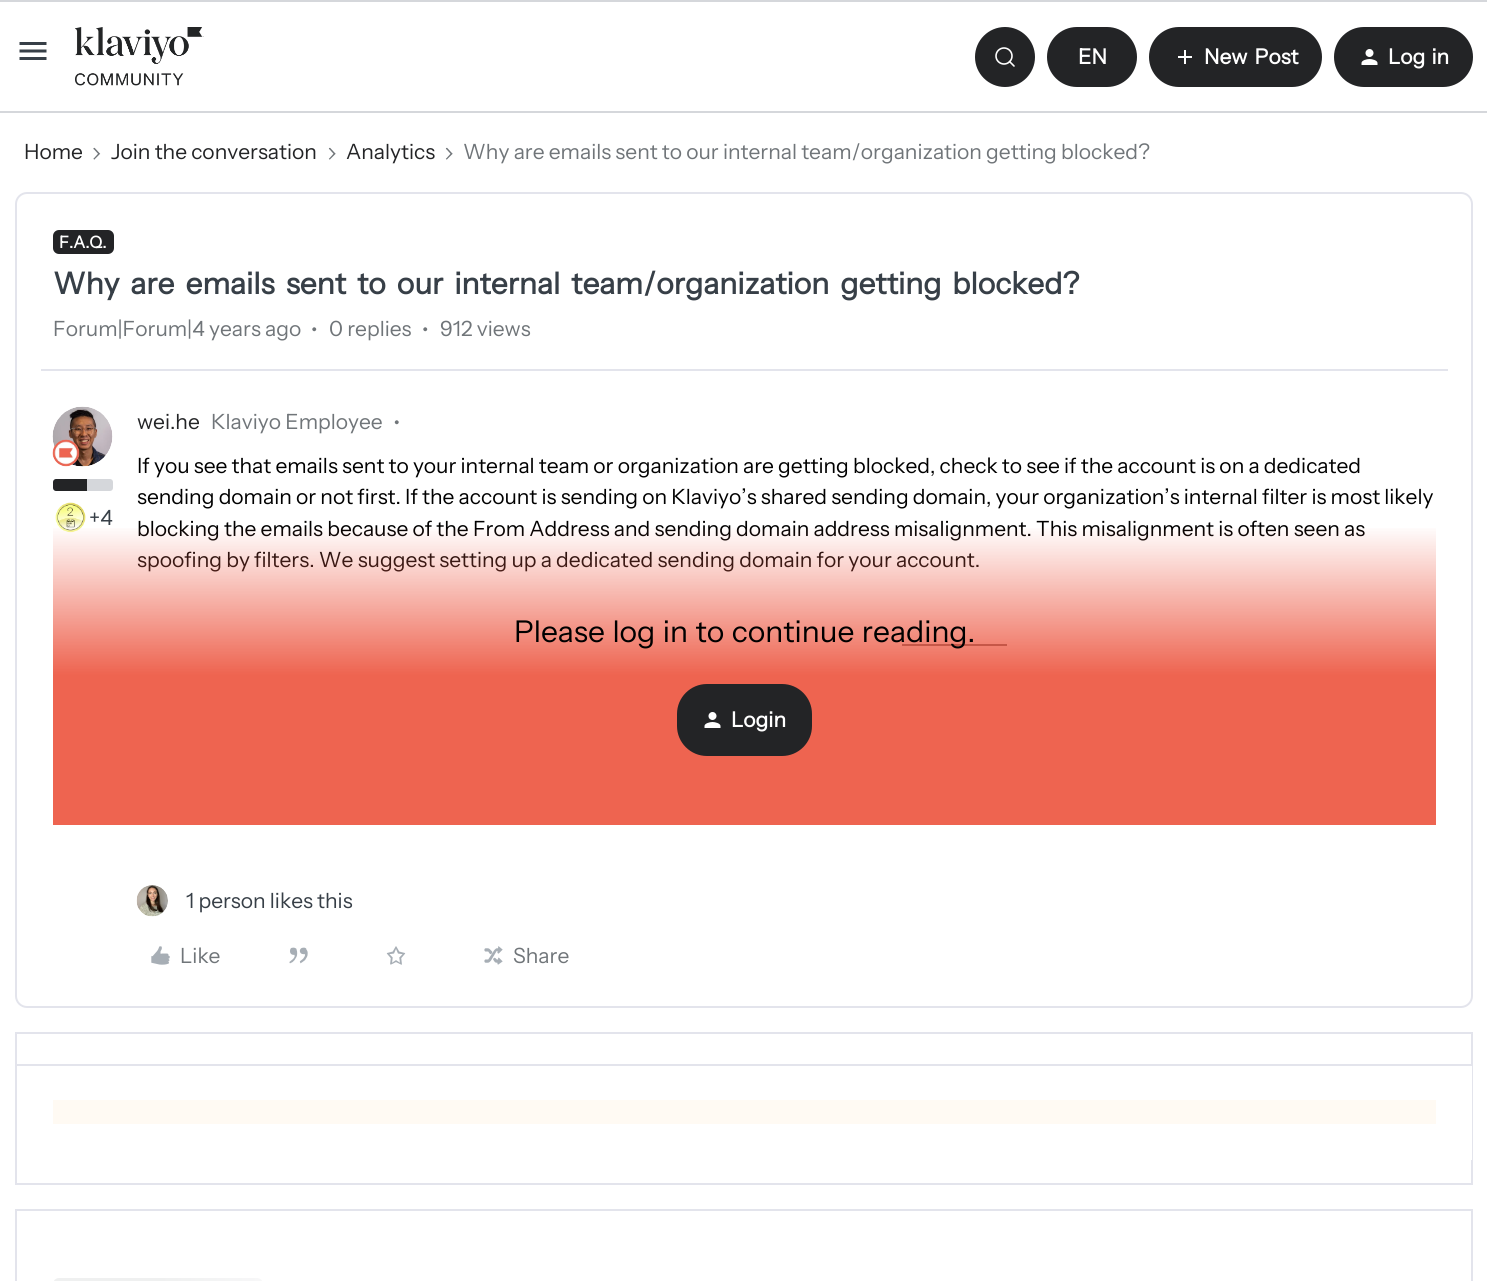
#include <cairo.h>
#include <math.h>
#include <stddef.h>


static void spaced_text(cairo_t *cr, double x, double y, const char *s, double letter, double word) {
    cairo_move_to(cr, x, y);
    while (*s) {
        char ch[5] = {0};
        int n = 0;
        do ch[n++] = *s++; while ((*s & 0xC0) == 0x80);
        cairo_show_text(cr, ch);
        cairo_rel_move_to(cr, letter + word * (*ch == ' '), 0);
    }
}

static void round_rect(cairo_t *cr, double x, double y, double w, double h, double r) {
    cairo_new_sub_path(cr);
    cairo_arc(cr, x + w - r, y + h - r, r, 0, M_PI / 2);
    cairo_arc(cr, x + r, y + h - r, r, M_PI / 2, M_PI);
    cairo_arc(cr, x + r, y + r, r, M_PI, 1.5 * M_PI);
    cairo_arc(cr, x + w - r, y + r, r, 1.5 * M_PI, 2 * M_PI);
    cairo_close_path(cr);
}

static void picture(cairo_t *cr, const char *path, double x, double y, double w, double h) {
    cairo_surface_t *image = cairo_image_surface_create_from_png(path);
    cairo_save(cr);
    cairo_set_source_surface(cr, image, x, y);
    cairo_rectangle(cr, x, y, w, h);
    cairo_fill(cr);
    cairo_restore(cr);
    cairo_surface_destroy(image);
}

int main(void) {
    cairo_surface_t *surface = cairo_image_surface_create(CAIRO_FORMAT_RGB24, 1487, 1281);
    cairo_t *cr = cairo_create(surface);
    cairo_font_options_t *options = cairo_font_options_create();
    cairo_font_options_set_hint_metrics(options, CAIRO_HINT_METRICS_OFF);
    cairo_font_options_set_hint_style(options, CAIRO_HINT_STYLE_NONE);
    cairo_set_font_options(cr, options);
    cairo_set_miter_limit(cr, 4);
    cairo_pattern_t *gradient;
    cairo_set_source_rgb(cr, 1, 1, 1);
    cairo_paint(cr);
    cairo_set_source_rgb(cr, 0.835, 0.843, 0.859);
    cairo_rectangle(cr, 0, 0, 1487, 2);
    cairo_fill(cr);
    cairo_rectangle(cr, 0, 111, 1487, 2);
    cairo_fill(cr);
    picture(cr, "img1.png", 19, 42, 28, 18);
    picture(cr, "img2.png", 75, 27, 129, 59);
    cairo_set_source_rgb(cr, 0.137, 0.141, 0.149);
    cairo_arc(cr, 1005, 57, 29, 0, 2 * M_PI);
    cairo_fill_preserve(cr);
    cairo_stroke(cr);
    cairo_arc(cr, 1004, 56, 8, 0, 2 * M_PI);
    cairo_set_source_rgb(cr, 1, 1, 1);
    cairo_set_line_width(cr, 1.6);
    cairo_stroke(cr);
    cairo_new_path(cr);
    cairo_move_to(cr, 1009.5, 61.5);
    cairo_line_to(cr, 1014, 66);
    cairo_set_line_cap(cr, CAIRO_LINE_CAP_ROUND);
    cairo_stroke(cr);
    cairo_set_source_rgb(cr, 0.137, 0.141, 0.149);
    round_rect(cr, 1048, 28, 88, 58, 29);
    cairo_fill_preserve(cr);
    cairo_set_line_width(cr, 2);
    cairo_set_line_cap(cr, CAIRO_LINE_CAP_BUTT);
    cairo_stroke(cr);
    cairo_select_font_face(cr, "Instrument Sans", CAIRO_FONT_SLANT_NORMAL, CAIRO_FONT_WEIGHT_BOLD);
    cairo_set_font_size(cr, 21);
    cairo_set_source_rgb(cr, 1, 1, 1);
    cairo_move_to(cr, 1078, 64);
    cairo_show_text(cr, "EN");
    cairo_set_source_rgb(cr, 0.137, 0.141, 0.149);
    round_rect(cr, 1150, 28, 171, 58, 29);
    cairo_fill_preserve(cr);
    cairo_stroke(cr);
    picture(cr, "img3.png", 1178, 50, 14, 14);
    cairo_set_source_rgb(cr, 1, 1, 1);
    spaced_text(cr, 1204, 64, "New Post", 0, 3);
    cairo_set_source_rgb(cr, 0.137, 0.141, 0.149);
    round_rect(cr, 1335, 28, 137, 58, 29);
    cairo_fill_preserve(cr);
    cairo_stroke(cr);
    picture(cr, "img4.png", 1361, 49, 17, 16);
    cairo_set_source_rgb(cr, 1, 1, 1);
    spaced_text(cr, 1388, 64, "Log in", 0, 2);
    cairo_select_font_face(cr, "Instrument Sans", CAIRO_FONT_SLANT_NORMAL, CAIRO_FONT_WEIGHT_NORMAL);
    cairo_set_source_rgb(cr, 0.137, 0.141, 0.149);
    cairo_move_to(cr, 24, 159);
    cairo_show_text(cr, "Home");
    picture(cr, "img5.png", 93, 147, 8, 13);
    cairo_move_to(cr, 111, 159);
    cairo_show_text(cr, "Join the conversation");
    picture(cr, "img6.png", 328, 147, 8, 13);
    cairo_move_to(cr, 346, 159);
    cairo_show_text(cr, "Analytics");
    picture(cr, "img6.png", 445, 147, 8, 13);
    cairo_set_source_rgb(cr, 0.439, 0.459, 0.475);
    cairo_move_to(cr, 463, 159);
    cairo_show_text(cr, "Why are emails sent to our internal team/organization getting blocked?");
    round_rect(cr, 16, 193, 1456, 814, 11);
    cairo_set_source_rgb(cr, 0.89, 0.894, 0.925);
    cairo_stroke(cr);
    cairo_set_source_rgb(cr, 0.137, 0.141, 0.149);
    round_rect(cr, 53, 230, 61, 24, 6);
    cairo_fill(cr);
    cairo_select_font_face(cr, "Instrument Sans", CAIRO_FONT_SLANT_NORMAL, CAIRO_FONT_WEIGHT_BOLD);
    cairo_set_font_size(cr, 16.5);
    cairo_set_source_rgb(cr, 1, 1, 1);
    cairo_move_to(cr, 59, 248);
    cairo_show_text(cr, "F.A.Q.");
    cairo_set_font_size(cr, 30);
    cairo_set_source_rgb(cr, 0.216, 0.247, 0.278);
    spaced_text(cr, 53, 294, "Why are emails sent to our internal team/organization getting blocked?", 0, 5);
    cairo_select_font_face(cr, "Instrument Sans", CAIRO_FONT_SLANT_NORMAL, CAIRO_FONT_WEIGHT_NORMAL);
    cairo_set_font_size(cr, 21);
    cairo_set_source_rgb(cr, 0.439, 0.459, 0.475);
    cairo_move_to(cr, 53, 336);
    cairo_show_text(cr, "Forum|Forum|4 years ago");
    picture(cr, "img7.png", 312, 327, 5, 5);
    cairo_move_to(cr, 329, 336);
    cairo_show_text(cr, "0 replies");
    picture(cr, "img7.png", 423, 327, 5, 5);
    cairo_move_to(cr, 440, 336);
    cairo_show_text(cr, "912 views");
    cairo_set_source_rgb(cr, 0.89, 0.894, 0.925);
    cairo_rectangle(cr, 41, 369, 1407, 2);
    cairo_fill(cr);
    cairo_set_source_rgb(cr, 0.137, 0.141, 0.149);
    cairo_move_to(cr, 137, 429);
    cairo_show_text(cr, "wei.he");
    cairo_set_source_rgb(cr, 0.439, 0.459, 0.475);
    cairo_move_to(cr, 211, 429);
    cairo_show_text(cr, "Klaviyo Employee");
    picture(cr, "img8.png", 394, 420, 5, 5);
    picture(cr, "img9.png", 52, 406, 61, 61);
    picture(cr, "img10.png", 52, 439, 28, 28);
    cairo_set_source_rgb(cr, 0.835, 0.843, 0.859);
    round_rect(cr, 53, 479, 60, 12, 3);
    cairo_fill(cr);
    cairo_set_source_rgb(cr, 0.137, 0.141, 0.149);
    cairo_new_path(cr);
    cairo_move_to(cr, 56, 479);
    cairo_line_to(cr, 87, 479);
    cairo_line_to(cr, 87, 491);
    cairo_line_to(cr, 56, 491);
    cairo_curve_to(cr, 54.5, 491, 53, 489.5, 53, 488);
    cairo_line_to(cr, 53, 482);
    cairo_curve_to(cr, 53, 480.5, 54.5, 479, 56, 479);
    cairo_close_path(cr);
    cairo_fill(cr);
    picture(cr, "img11.png", 55, 502, 31, 31);
    cairo_set_source_rgb(cr, 0.216, 0.247, 0.278);
    cairo_move_to(cr, 89, 525);
    cairo_show_text(cr, "+4");
    cairo_set_source_rgb(cr, 0, 0, 0);
    cairo_move_to(cr, 137, 473);
    cairo_show_text(cr, "If you see that emails sent to your internal team or organization are getting blocked, check to see if the account is on a dedicated");
    cairo_move_to(cr, 137, 504);
    cairo_show_text(cr, "sending domain or not first. If the account is sending on Klaviyo’s shared sending domain, your organization’s internal filter is most likely");
    cairo_move_to(cr, 137, 536);
    cairo_show_text(cr, "blocking the emails because of the From Address and sending domain address misalignment. This misalignment is often seen as");
    cairo_move_to(cr, 137, 567);
    cairo_show_text(cr, "spoofing by filters. We suggest setting up a dedicated sending domain for your account.");
    cairo_set_source_rgb(cr, 0.137, 0.141, 0.149);
    cairo_rectangle(cr, 902, 644, 105, 2);
    cairo_fill(cr);
    gradient = cairo_pattern_create_linear(744, 525, 744, 825);
    cairo_pattern_add_color_stop_rgba(gradient, 0, 0.933, 0.392, 0.314, 0);
    cairo_pattern_add_color_stop_rgba(gradient, 0.5, 0.933, 0.392, 0.314, 1);
    cairo_set_source(cr, gradient);
    cairo_pattern_destroy(gradient);
    cairo_rectangle(cr, 53, 528, 1383, 297);
    cairo_fill(cr);
    cairo_set_font_size(cr, 30);
    cairo_set_source_rgb(cr, 0, 0, 0);
    spaced_text(cr, 514, 642, "Please log in to continue reading.", 0, 1.5);
    cairo_set_source_rgb(cr, 0.137, 0.141, 0.149);
    round_rect(cr, 678, 685, 133, 70, 29);
    cairo_fill_preserve(cr);
    cairo_stroke(cr);
    picture(cr, "img4.png", 704, 712, 17, 16);
    cairo_select_font_face(cr, "Instrument Sans", CAIRO_FONT_SLANT_NORMAL, CAIRO_FONT_WEIGHT_BOLD);
    cairo_set_font_size(cr, 21);
    cairo_set_source_rgb(cr, 1, 1, 1);
    cairo_move_to(cr, 731, 727);
    cairo_show_text(cr, "Login");
    picture(cr, "img12.png", 136, 885, 32, 32);
    cairo_select_font_face(cr, "Instrument Sans", CAIRO_FONT_SLANT_NORMAL, CAIRO_FONT_WEIGHT_NORMAL);
    cairo_set_source_rgb(cr, 0.216, 0.247, 0.278);
    cairo_move_to(cr, 186, 908);
    cairo_show_text(cr, "1 person likes this");
    picture(cr, "img13.png", 151, 946, 19, 19);
    cairo_set_source_rgb(cr, 0.439, 0.459, 0.475);
    cairo_move_to(cr, 180, 963);
    cairo_show_text(cr, "Like");
    picture(cr, "img14.png", 289, 947, 19, 17);
    picture(cr, "img15.png", 386, 946, 20, 19);
    picture(cr, "img16.png", 484, 946, 19, 19);
    cairo_move_to(cr, 513, 963);
    cairo_show_text(cr, "Share");
    cairo_rectangle(cr, 16, 1033, 1456, 151);
    cairo_set_source_rgb(cr, 0.89, 0.894, 0.925);
    cairo_stroke(cr);
    cairo_rectangle(cr, 17, 1064, 1455, 2);
    cairo_fill(cr);
    cairo_set_source_rgb(cr, 1, 1, 1);
    cairo_rectangle(cr, 1471, 1066, 1, 94);
    cairo_fill(cr);
    cairo_set_source_rgb(cr, 1, 0.98, 0.953);
    cairo_rectangle(cr, 53, 1100, 1383, 24);
    cairo_fill(cr);
    cairo_rectangle(cr, 16, 1210, 1456, 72);
    cairo_set_source_rgb(cr, 0.89, 0.894, 0.925);
    cairo_stroke(cr);
    gradient = cairo_pattern_create_linear(53, 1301, 473, 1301);
    cairo_pattern_add_color_stop_rgba(gradient, 0.25, 0.937, 0.941, 0.941, 1);
    cairo_pattern_add_color_stop_rgba(gradient, 0.5, 0.969, 0.969, 0.973, 1);
    cairo_pattern_add_color_stop_rgba(gradient, 0.75, 0.937, 0.941, 0.941, 1);
    cairo_set_source(cr, gradient);
    cairo_pattern_destroy(gradient);
    round_rect(cr, 53, 1278, 210, 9, 6);
    cairo_fill(cr);
    cairo_surface_write_to_png(surface, "page.png");
    cairo_font_options_destroy(options);
    cairo_destroy(cr);
    cairo_surface_destroy(surface);
    return 0;
}
